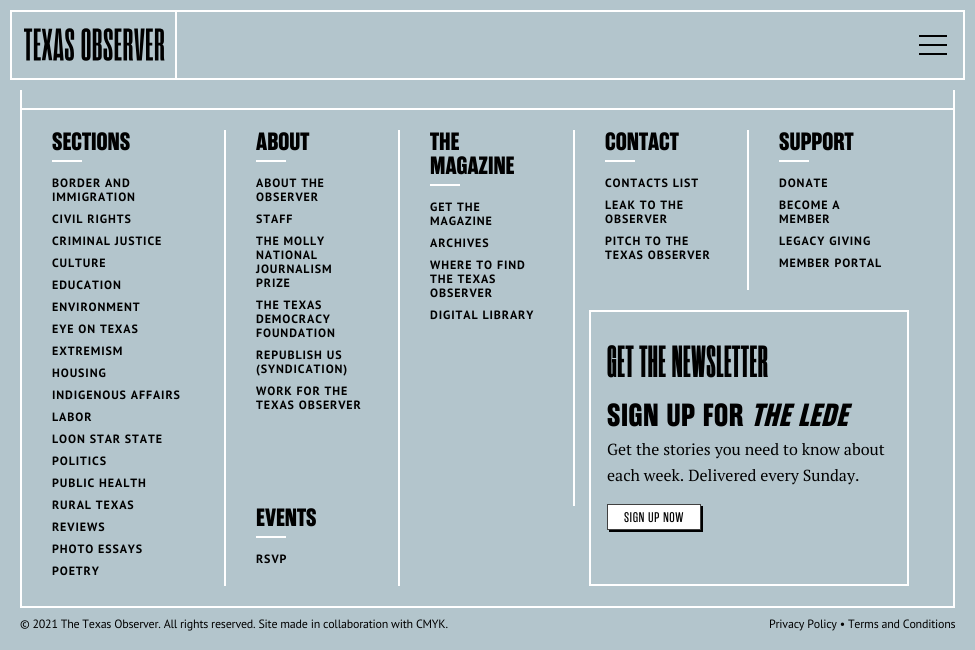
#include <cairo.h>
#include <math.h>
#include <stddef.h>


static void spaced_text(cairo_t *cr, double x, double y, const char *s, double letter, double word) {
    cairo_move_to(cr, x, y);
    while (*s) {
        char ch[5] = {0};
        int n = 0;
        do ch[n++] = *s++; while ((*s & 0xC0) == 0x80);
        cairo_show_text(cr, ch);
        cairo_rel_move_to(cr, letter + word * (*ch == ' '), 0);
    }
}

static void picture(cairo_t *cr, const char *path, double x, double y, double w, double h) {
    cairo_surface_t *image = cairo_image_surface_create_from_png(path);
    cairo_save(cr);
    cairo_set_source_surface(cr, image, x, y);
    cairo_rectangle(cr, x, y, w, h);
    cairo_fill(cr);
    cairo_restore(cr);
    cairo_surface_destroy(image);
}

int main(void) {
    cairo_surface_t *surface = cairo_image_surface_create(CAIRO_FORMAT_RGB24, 975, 650);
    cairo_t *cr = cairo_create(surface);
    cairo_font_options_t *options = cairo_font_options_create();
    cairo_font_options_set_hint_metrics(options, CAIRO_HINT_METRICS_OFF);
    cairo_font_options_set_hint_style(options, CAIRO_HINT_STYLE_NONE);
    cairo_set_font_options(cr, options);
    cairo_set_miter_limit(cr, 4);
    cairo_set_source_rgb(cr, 0.702, 0.773, 0.8);
    cairo_paint(cr);
    cairo_set_source_rgb(cr, 1, 1, 1);
    cairo_rectangle(cr, 175, 10, 2, 70);
    cairo_fill(cr);
    picture(cr, "img1.png", 24, 28, 141, 33);
    cairo_rectangle(cr, 11, 11, 953, 68);
    cairo_stroke(cr);
    cairo_set_source_rgb(cr, 0, 0, 0);
    cairo_rectangle(cr, 919, 35, 28, 2);
    cairo_fill(cr);
    cairo_rectangle(cr, 919, 44, 28, 2);
    cairo_fill(cr);
    cairo_rectangle(cr, 919, 53, 28, 2);
    cairo_fill(cr);
    cairo_set_source_rgb(cr, 1, 1, 1);
    cairo_rectangle(cr, 953, 90, 2, 18);
    cairo_fill(cr);
    cairo_rectangle(cr, 20, 90, 2, 18);
    cairo_fill(cr);
    cairo_rectangle(cr, 21, 109, 933, 498);
    cairo_stroke(cr);
    cairo_rectangle(cr, 224, 130, 2, 456);
    cairo_fill(cr);
    cairo_select_font_face(cr, "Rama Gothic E", CAIRO_FONT_SLANT_NORMAL, CAIRO_FONT_WEIGHT_BOLD);
    cairo_set_font_size(cr, 25);
    cairo_set_source_rgb(cr, 0, 0, 0);
    cairo_move_to(cr, 52, 150);
    cairo_show_text(cr, "SECTIONS");
    cairo_set_source_rgb(cr, 1, 1, 1);
    cairo_rectangle(cr, 52, 160, 30, 2);
    cairo_fill(cr);
    cairo_select_font_face(cr, "PT Sans", CAIRO_FONT_SLANT_NORMAL, CAIRO_FONT_WEIGHT_BOLD);
    cairo_set_font_size(cr, 12);
    cairo_set_source_rgb(cr, 0, 0, 0);
    spaced_text(cr, 52, 187, "BORDER AND", 0.9, 0);
    spaced_text(cr, 52, 201, "IMMIGRATION", 0.9, 0);
    spaced_text(cr, 52, 223, "CIVIL RIGHTS", 0.9, 0);
    spaced_text(cr, 52, 245, "CRIMINAL JUSTICE", 0.9, 0);
    spaced_text(cr, 52, 267, "CULTURE", 0.9, 0);
    spaced_text(cr, 52, 289, "EDUCATION", 0.9, 0);
    spaced_text(cr, 52, 311, "ENVIRONMENT", 0.9, 0);
    spaced_text(cr, 52, 333, "EYE ON TEXAS", 0.9, 0);
    spaced_text(cr, 52, 355, "EXTREMISM", 0.9, 0);
    spaced_text(cr, 52, 377, "HOUSING", 0.9, 0);
    spaced_text(cr, 52, 399, "INDIGENOUS AFFAIRS", 0.9, 0);
    spaced_text(cr, 52, 421, "LABOR", 0.9, 0);
    spaced_text(cr, 52, 443, "LOON STAR STATE", 0.9, 0);
    spaced_text(cr, 52, 465, "POLITICS", 0.9, 0);
    spaced_text(cr, 52, 487, "PUBLIC HEALTH", 0.9, 0);
    spaced_text(cr, 52, 509, "RURAL TEXAS", 0.9, 0);
    spaced_text(cr, 52, 531, "REVIEWS", 0.9, 0);
    spaced_text(cr, 52, 553, "PHOTO ESSAYS", 0.9, 0);
    spaced_text(cr, 52, 575, "POETRY", 0.9, 0);
    cairo_set_source_rgb(cr, 1, 1, 1);
    cairo_rectangle(cr, 398, 130, 2, 456);
    cairo_fill(cr);
    cairo_select_font_face(cr, "Rama Gothic E", CAIRO_FONT_SLANT_NORMAL, CAIRO_FONT_WEIGHT_BOLD);
    cairo_set_font_size(cr, 25);
    cairo_set_source_rgb(cr, 0, 0, 0);
    cairo_move_to(cr, 256, 150);
    cairo_show_text(cr, "ABOUT");
    cairo_set_source_rgb(cr, 1, 1, 1);
    cairo_rectangle(cr, 256, 160, 30, 2);
    cairo_fill(cr);
    cairo_select_font_face(cr, "PT Sans", CAIRO_FONT_SLANT_NORMAL, CAIRO_FONT_WEIGHT_BOLD);
    cairo_set_font_size(cr, 12);
    cairo_set_source_rgb(cr, 0, 0, 0);
    spaced_text(cr, 256, 187, "ABOUT THE", 0.9, 0);
    spaced_text(cr, 256, 201, "OBSERVER", 0.9, 0);
    spaced_text(cr, 256, 223, "STAFF", 0.9, 0);
    spaced_text(cr, 256, 245, "THE MOLLY", 0.9, 0);
    spaced_text(cr, 256, 259, "NATIONAL", 0.9, 0);
    spaced_text(cr, 256, 273, "JOURNALISM", 0.9, 0);
    spaced_text(cr, 256, 287, "PRIZE", 0.9, 0);
    spaced_text(cr, 256, 309, "THE TEXAS", 0.9, 0);
    spaced_text(cr, 256, 323, "DEMOCRACY", 0.9, 0);
    spaced_text(cr, 256, 337, "FOUNDATION", 0.9, 0);
    spaced_text(cr, 256, 359, "REPUBLISH US", 0.9, 0);
    spaced_text(cr, 256, 373, "(SYNDICATION)", 0.9, 0);
    spaced_text(cr, 256, 395, "WORK FOR THE", 0.9, 0);
    spaced_text(cr, 256, 409, "TEXAS OBSERVER", 0.9, 0);
    cairo_set_source_rgb(cr, 1, 1, 1);
    cairo_rectangle(cr, 573, 130, 2, 376);
    cairo_fill(cr);
    cairo_select_font_face(cr, "Rama Gothic E", CAIRO_FONT_SLANT_NORMAL, CAIRO_FONT_WEIGHT_BOLD);
    cairo_set_font_size(cr, 25);
    cairo_set_source_rgb(cr, 0, 0, 0);
    cairo_move_to(cr, 430, 150);
    cairo_show_text(cr, "THE");
    cairo_move_to(cr, 430, 174);
    cairo_show_text(cr, "MAGAZINE");
    cairo_set_source_rgb(cr, 1, 1, 1);
    cairo_rectangle(cr, 430, 184, 30, 2);
    cairo_fill(cr);
    cairo_select_font_face(cr, "PT Sans", CAIRO_FONT_SLANT_NORMAL, CAIRO_FONT_WEIGHT_BOLD);
    cairo_set_font_size(cr, 12);
    cairo_set_source_rgb(cr, 0, 0, 0);
    spaced_text(cr, 430, 211, "GET THE", 0.9, 0);
    spaced_text(cr, 430, 225, "MAGAZINE", 0.9, 0);
    spaced_text(cr, 430, 247, "ARCHIVES", 0.9, 0);
    spaced_text(cr, 430, 269, "WHERE TO FIND", 0.9, 0);
    spaced_text(cr, 430, 283, "THE TEXAS", 0.9, 0);
    spaced_text(cr, 430, 297, "OBSERVER", 0.9, 0);
    spaced_text(cr, 430, 319, "DIGITAL LIBRARY", 0.9, 0);
    cairo_set_source_rgb(cr, 1, 1, 1);
    cairo_rectangle(cr, 747, 130, 2, 160);
    cairo_fill(cr);
    cairo_select_font_face(cr, "Rama Gothic E", CAIRO_FONT_SLANT_NORMAL, CAIRO_FONT_WEIGHT_BOLD);
    cairo_set_font_size(cr, 25);
    cairo_set_source_rgb(cr, 0, 0, 0);
    cairo_move_to(cr, 605, 150);
    cairo_show_text(cr, "CONTACT");
    cairo_set_source_rgb(cr, 1, 1, 1);
    cairo_rectangle(cr, 605, 160, 30, 2);
    cairo_fill(cr);
    cairo_select_font_face(cr, "PT Sans", CAIRO_FONT_SLANT_NORMAL, CAIRO_FONT_WEIGHT_BOLD);
    cairo_set_font_size(cr, 12);
    cairo_set_source_rgb(cr, 0, 0, 0);
    spaced_text(cr, 605, 187, "CONTACTS LIST", 0.9, 0);
    spaced_text(cr, 605, 209, "LEAK TO THE", 0.9, 0);
    spaced_text(cr, 605, 223, "OBSERVER", 0.9, 0);
    spaced_text(cr, 605, 245, "PITCH TO THE", 0.9, 0);
    spaced_text(cr, 605, 259, "TEXAS OBSERVER", 0.9, 0);
    cairo_select_font_face(cr, "Rama Gothic E", CAIRO_FONT_SLANT_NORMAL, CAIRO_FONT_WEIGHT_BOLD);
    cairo_set_font_size(cr, 25);
    cairo_move_to(cr, 779, 150);
    cairo_show_text(cr, "SUPPORT");
    cairo_set_source_rgb(cr, 1, 1, 1);
    cairo_rectangle(cr, 779, 160, 30, 2);
    cairo_fill(cr);
    cairo_select_font_face(cr, "PT Sans", CAIRO_FONT_SLANT_NORMAL, CAIRO_FONT_WEIGHT_BOLD);
    cairo_set_font_size(cr, 12);
    cairo_set_source_rgb(cr, 0, 0, 0);
    spaced_text(cr, 779, 187, "DONATE", 0.9, 0);
    spaced_text(cr, 779, 209, "BECOME A", 0.9, 0);
    spaced_text(cr, 779, 223, "MEMBER", 0.9, 0);
    spaced_text(cr, 779, 245, "LEGACY GIVING", 0.9, 0);
    spaced_text(cr, 779, 267, "MEMBER PORTAL", 0.9, 0);
    cairo_rectangle(cr, 590, 311, 318, 274);
    cairo_set_source_rgb(cr, 1, 1, 1);
    cairo_stroke(cr);
    cairo_select_font_face(cr, "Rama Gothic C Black", CAIRO_FONT_SLANT_NORMAL, CAIRO_FONT_WEIGHT_NORMAL);
    cairo_set_font_size(cr, 45);
    cairo_set_source_rgb(cr, 0, 0, 0);
    spaced_text(cr, 607, 377, "GET THE NEWSLETTER", 0.5, 0);
    cairo_select_font_face(cr, "Rama Gothic E", CAIRO_FONT_SLANT_NORMAL, CAIRO_FONT_WEIGHT_BOLD);
    cairo_set_font_size(cr, 32);
    spaced_text(cr, 607, 426, "SIGN UP FOR", 0.6, 0);
    cairo_select_font_face(cr, "Rama Gothic E", CAIRO_FONT_SLANT_ITALIC, CAIRO_FONT_WEIGHT_BOLD);
    spaced_text(cr, 751, 426, "THE LEDE", 0.6, 0);
    cairo_select_font_face(cr, "PT Serif", CAIRO_FONT_SLANT_NORMAL, CAIRO_FONT_WEIGHT_NORMAL);
    cairo_set_font_size(cr, 16);
    cairo_move_to(cr, 607, 455);
    cairo_show_text(cr, "Get the stories you need to know about");
    cairo_move_to(cr, 607, 481);
    cairo_show_text(cr, "each week. Delivered every Sunday.");
    cairo_new_path(cr);
    cairo_move_to(cr, 609, 530);
    cairo_line_to(cr, 609, 532);
    cairo_line_to(cr, 703, 532);
    cairo_line_to(cr, 703, 506);
    cairo_line_to(cr, 701, 506);
    cairo_line_to(cr, 701, 530);
    cairo_close_path(cr);
    cairo_fill(cr);
    cairo_set_source_rgb(cr, 1, 1, 1);
    cairo_rectangle(cr, 607.5, 504.5, 93, 25);
    cairo_fill_preserve(cr);
    cairo_set_source_rgb(cr, 0.251, 0.251, 0.251);
    cairo_set_line_width(cr, 1);
    cairo_stroke(cr);
    cairo_select_font_face(cr, "Rama Gothic E", CAIRO_FONT_SLANT_NORMAL, CAIRO_FONT_WEIGHT_NORMAL);
    cairo_set_font_size(cr, 14);
    cairo_set_source_rgb(cr, 0, 0, 0);
    spaced_text(cr, 624, 522, "SIGN UP NOW", 0.5, 0);
    cairo_select_font_face(cr, "Rama Gothic E", CAIRO_FONT_SLANT_NORMAL, CAIRO_FONT_WEIGHT_BOLD);
    cairo_set_font_size(cr, 25);
    cairo_move_to(cr, 256, 526);
    cairo_show_text(cr, "EVENTS");
    cairo_set_source_rgb(cr, 1, 1, 1);
    cairo_rectangle(cr, 256, 536, 30, 2);
    cairo_fill(cr);
    cairo_select_font_face(cr, "PT Sans", CAIRO_FONT_SLANT_NORMAL, CAIRO_FONT_WEIGHT_BOLD);
    cairo_set_font_size(cr, 12);
    cairo_set_source_rgb(cr, 0, 0, 0);
    spaced_text(cr, 256, 563, "RSVP", 0.9, 0);
    cairo_select_font_face(cr, "PT Sans", CAIRO_FONT_SLANT_NORMAL, CAIRO_FONT_WEIGHT_NORMAL);
    spaced_text(cr, 20, 628, "© 2021 The Texas Observer. All rights reserved. Site made in collaboration with CMYK.", -0.22, 0);
    spaced_text(cr, 769, 628, "Privacy Policy • Terms and Conditions", -0.22, 0);
    cairo_surface_write_to_png(surface, "page.png");
    cairo_font_options_destroy(options);
    cairo_destroy(cr);
    cairo_surface_destroy(surface);
    return 0;
}
